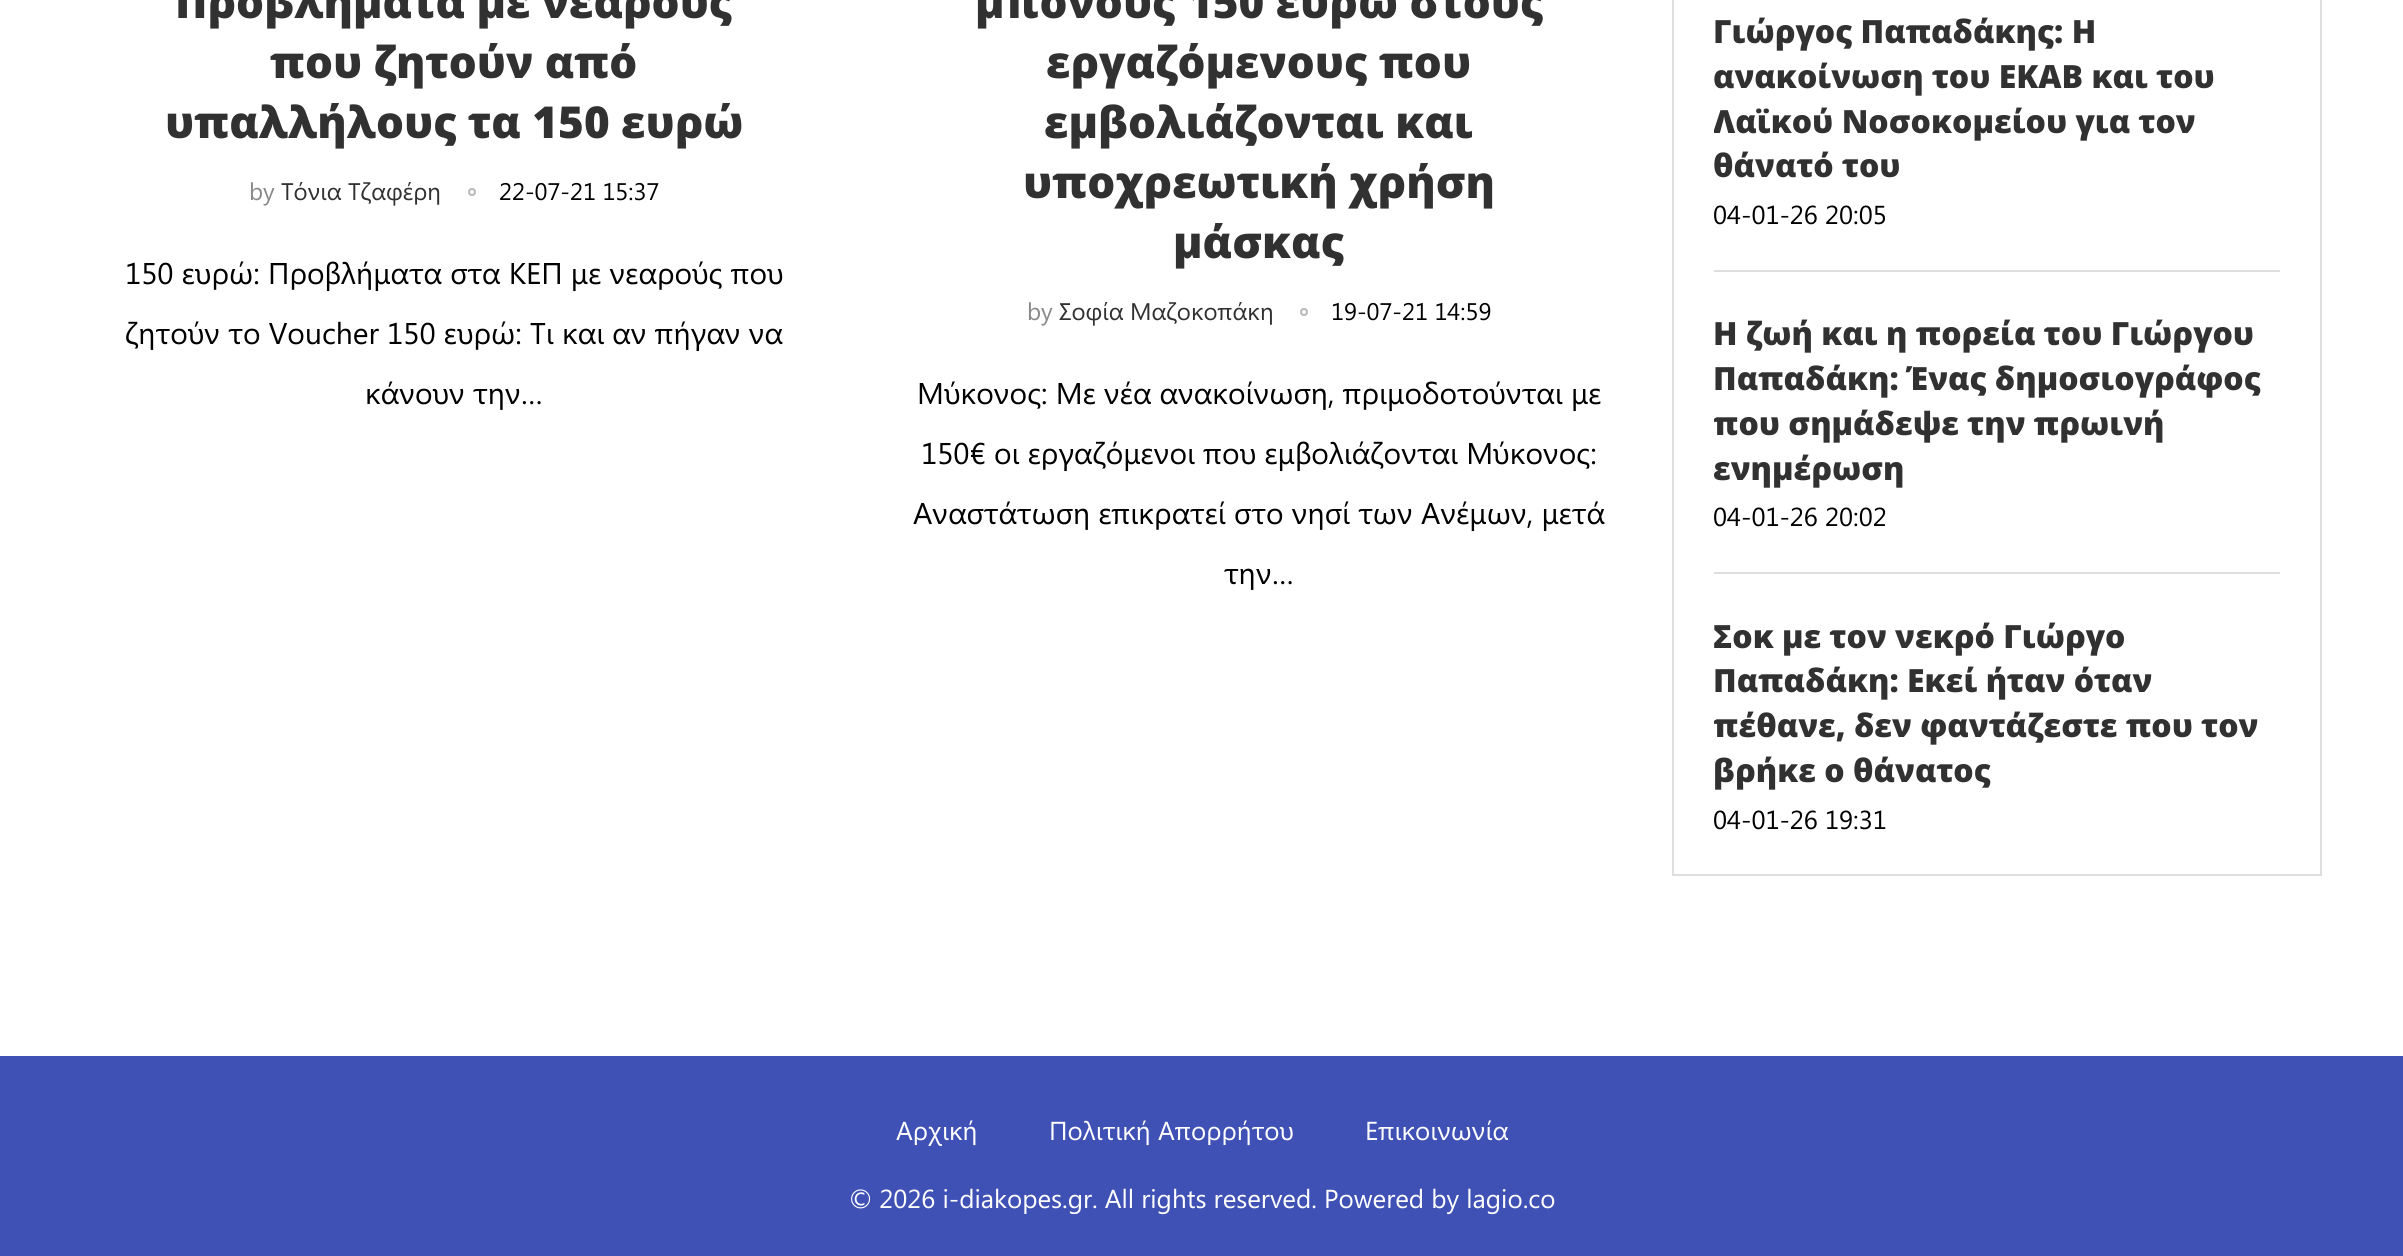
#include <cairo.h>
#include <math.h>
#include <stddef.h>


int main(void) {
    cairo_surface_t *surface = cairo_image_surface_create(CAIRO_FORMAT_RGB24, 2403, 1256);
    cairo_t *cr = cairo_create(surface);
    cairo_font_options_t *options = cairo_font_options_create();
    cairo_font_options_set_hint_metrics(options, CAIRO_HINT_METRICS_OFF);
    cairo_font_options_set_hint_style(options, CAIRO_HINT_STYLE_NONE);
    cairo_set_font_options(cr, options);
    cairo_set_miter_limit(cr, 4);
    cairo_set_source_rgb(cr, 1, 1, 1);
    cairo_paint(cr);
    cairo_select_font_face(cr, "Open Sans ExtraBold", CAIRO_FONT_SLANT_NORMAL, CAIRO_FONT_WEIGHT_NORMAL);
    cairo_set_font_size(cr, 44);
    cairo_set_source_rgb(cr, 0.192, 0.192, 0.192);
    cairo_move_to(cr, 175, 18);
    cairo_show_text(cr, "Προβλήματα με νεαρούς");
    cairo_move_to(cr, 270, 78);
    cairo_show_text(cr, "που ζητούν από");
    cairo_move_to(cr, 165, 138);
    cairo_show_text(cr, "υπαλλήλους τα 150 ευρώ");
    cairo_select_font_face(cr, "Segoe UI", CAIRO_FONT_SLANT_NORMAL, CAIRO_FONT_WEIGHT_NORMAL);
    cairo_set_font_size(cr, 24);
    cairo_set_source_rgb(cr, 0.533, 0.533, 0.533);
    cairo_move_to(cr, 249, 200);
    cairo_show_text(cr, "by");
    cairo_set_source_rgb(cr, 0.192, 0.192, 0.192);
    cairo_move_to(cr, 281, 200);
    cairo_show_text(cr, "Τόνια Τζαφέρη");
    cairo_new_path(cr);
    cairo_arc(cr, 472, 192, 3, 0, 2 * M_PI);
    cairo_set_source_rgb(cr, 0.722, 0.722, 0.722);
    cairo_stroke(cr);
    cairo_set_source_rgb(cr, 0, 0, 0);
    cairo_move_to(cr, 499, 200);
    cairo_show_text(cr, "22-07-21 15:37");
    cairo_set_font_size(cr, 30);
    cairo_move_to(cr, 125, 284);
    cairo_show_text(cr, "150 ευρώ: Προβλήματα στα ΚΕΠ με νεαρούς που");
    cairo_move_to(cr, 125, 344);
    cairo_show_text(cr, "ζητούν το Voucher 150 ευρώ: Τι και αν πήγαν να");
    cairo_move_to(cr, 365, 404);
    cairo_show_text(cr, "κάνουν την…");
    cairo_select_font_face(cr, "Open Sans ExtraBold", CAIRO_FONT_SLANT_NORMAL, CAIRO_FONT_WEIGHT_NORMAL);
    cairo_set_font_size(cr, 44);
    cairo_set_source_rgb(cr, 0.192, 0.192, 0.192);
    cairo_move_to(cr, 975, 18);
    cairo_show_text(cr, "μπόνους 150 ευρώ στους");
    cairo_move_to(cr, 1046, 78);
    cairo_show_text(cr, "εργαζόμενους που");
    cairo_move_to(cr, 1044, 138);
    cairo_show_text(cr, "εμβολιάζονται και");
    cairo_move_to(cr, 1023, 198);
    cairo_show_text(cr, "υποχρεωτική χρήση");
    cairo_move_to(cr, 1173, 258);
    cairo_show_text(cr, "μάσκας");
    cairo_select_font_face(cr, "Segoe UI", CAIRO_FONT_SLANT_NORMAL, CAIRO_FONT_WEIGHT_NORMAL);
    cairo_set_font_size(cr, 24);
    cairo_set_source_rgb(cr, 0.533, 0.533, 0.533);
    cairo_move_to(cr, 1027, 320);
    cairo_show_text(cr, "by");
    cairo_set_source_rgb(cr, 0.192, 0.192, 0.192);
    cairo_move_to(cr, 1059, 320);
    cairo_show_text(cr, "Σοφία Μαζοκοπάκη");
    cairo_new_path(cr);
    cairo_arc(cr, 1304, 312, 3, 0, 2 * M_PI);
    cairo_set_source_rgb(cr, 0.722, 0.722, 0.722);
    cairo_stroke(cr);
    cairo_set_source_rgb(cr, 0, 0, 0);
    cairo_move_to(cr, 1331, 320);
    cairo_show_text(cr, "19-07-21 14:59");
    cairo_set_font_size(cr, 30);
    cairo_move_to(cr, 917, 404);
    cairo_show_text(cr, "Μύκονος: Με νέα ανακοίνωση, πριμοδοτούνται με");
    cairo_move_to(cr, 921, 464);
    cairo_show_text(cr, "150€ οι εργαζόμενοι που εμβολιάζονται Μύκονος:");
    cairo_move_to(cr, 913, 524);
    cairo_show_text(cr, "Αναστάτωση επικρατεί στο νησί των Ανέμων, μετά");
    cairo_move_to(cr, 1224, 584);
    cairo_show_text(cr, "την…");
    cairo_rectangle(cr, 1673, -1, 648, 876);
    cairo_set_source_rgb(cr, 0.871, 0.871, 0.871);
    cairo_stroke(cr);
    cairo_rectangle(cr, 1714, 270, 566, 2);
    cairo_fill(cr);
    cairo_select_font_face(cr, "Open Sans ExtraBold", CAIRO_FONT_SLANT_NORMAL, CAIRO_FONT_WEIGHT_NORMAL);
    cairo_set_font_size(cr, 32);
    cairo_set_source_rgb(cr, 0.192, 0.192, 0.192);
    cairo_move_to(cr, 1713, 43);
    cairo_show_text(cr, "Γιώργος Παπαδάκης: Η");
    cairo_move_to(cr, 1713, 88);
    cairo_show_text(cr, "ανακοίνωση του ΕΚΑΒ και του");
    cairo_save(cr);
    cairo_rectangle(cr, 1714, 10, 566, 220);
    cairo_clip(cr);
    cairo_move_to(cr, 1713, 133);
    cairo_show_text(cr, "Λαϊκού Νοσοκομείου για τον");
    cairo_restore(cr);
    cairo_move_to(cr, 1713, 177);
    cairo_show_text(cr, "θάνατό του");
    cairo_select_font_face(cr, "Segoe UI", CAIRO_FONT_SLANT_NORMAL, CAIRO_FONT_WEIGHT_NORMAL);
    cairo_set_font_size(cr, 26);
    cairo_set_source_rgb(cr, 0, 0, 0);
    cairo_move_to(cr, 1713, 224);
    cairo_show_text(cr, "04-01-26 20:05");
    cairo_set_source_rgb(cr, 0.871, 0.871, 0.871);
    cairo_rectangle(cr, 1714, 572, 566, 2);
    cairo_fill(cr);
    cairo_select_font_face(cr, "Open Sans ExtraBold", CAIRO_FONT_SLANT_NORMAL, CAIRO_FONT_WEIGHT_NORMAL);
    cairo_set_font_size(cr, 32);
    cairo_set_source_rgb(cr, 0.192, 0.192, 0.192);
    cairo_move_to(cr, 1713, 345);
    cairo_show_text(cr, "Η ζωή και η πορεία του Γιώργου");
    cairo_move_to(cr, 1713, 390);
    cairo_show_text(cr, "Παπαδάκη: Ένας δημοσιογράφος");
    cairo_save(cr);
    cairo_rectangle(cr, 1714, 312, 566, 220);
    cairo_clip(cr);
    cairo_move_to(cr, 1713, 435);
    cairo_show_text(cr, "που σημάδεψε την πρωινή");
    cairo_restore(cr);
    cairo_move_to(cr, 1713, 480);
    cairo_show_text(cr, "ενημέρωση");
    cairo_select_font_face(cr, "Segoe UI", CAIRO_FONT_SLANT_NORMAL, CAIRO_FONT_WEIGHT_NORMAL);
    cairo_set_font_size(cr, 26);
    cairo_set_source_rgb(cr, 0, 0, 0);
    cairo_move_to(cr, 1713, 526);
    cairo_show_text(cr, "04-01-26 20:02");
    cairo_select_font_face(cr, "Open Sans ExtraBold", CAIRO_FONT_SLANT_NORMAL, CAIRO_FONT_WEIGHT_NORMAL);
    cairo_set_font_size(cr, 32);
    cairo_set_source_rgb(cr, 0.192, 0.192, 0.192);
    cairo_move_to(cr, 1713, 648);
    cairo_show_text(cr, "Σoκ με τον νεκρό Γιώργο");
    cairo_move_to(cr, 1713, 692);
    cairo_show_text(cr, "Παπαδάκη: Εκεί ήταν όταν");
    cairo_save(cr);
    cairo_rectangle(cr, 1714, 614, 566, 220);
    cairo_clip(cr);
    cairo_move_to(cr, 1713, 737);
    cairo_show_text(cr, "πέθανε, δεν φαντάζεστε που τον");
    cairo_restore(cr);
    cairo_move_to(cr, 1713, 782);
    cairo_show_text(cr, "βρήκε ο θάνατος");
    cairo_select_font_face(cr, "Segoe UI", CAIRO_FONT_SLANT_NORMAL, CAIRO_FONT_WEIGHT_NORMAL);
    cairo_set_font_size(cr, 26);
    cairo_set_source_rgb(cr, 0, 0, 0);
    cairo_move_to(cr, 1713, 829);
    cairo_show_text(cr, "04-01-26 19:31");
    cairo_set_source_rgb(cr, 0.247, 0.318, 0.71);
    cairo_rectangle(cr, 0, 1056, 2403, 200);
    cairo_fill(cr);
    cairo_set_source_rgb(cr, 1, 1, 1);
    cairo_move_to(cr, 896, 1140);
    cairo_show_text(cr, "Αρχική");
    cairo_move_to(cr, 1049, 1140);
    cairo_show_text(cr, "Πολιτική Απορρήτου");
    cairo_move_to(cr, 1365, 1140);
    cairo_show_text(cr, "Επικοινωνία");
    cairo_move_to(cr, 849, 1208);
    cairo_show_text(cr, "© 2026 i-diakopes.gr. All rights reserved. Powered by lagio.co");
    cairo_surface_write_to_png(surface, "page.png");
    cairo_font_options_destroy(options);
    cairo_destroy(cr);
    cairo_surface_destroy(surface);
    return 0;
}
